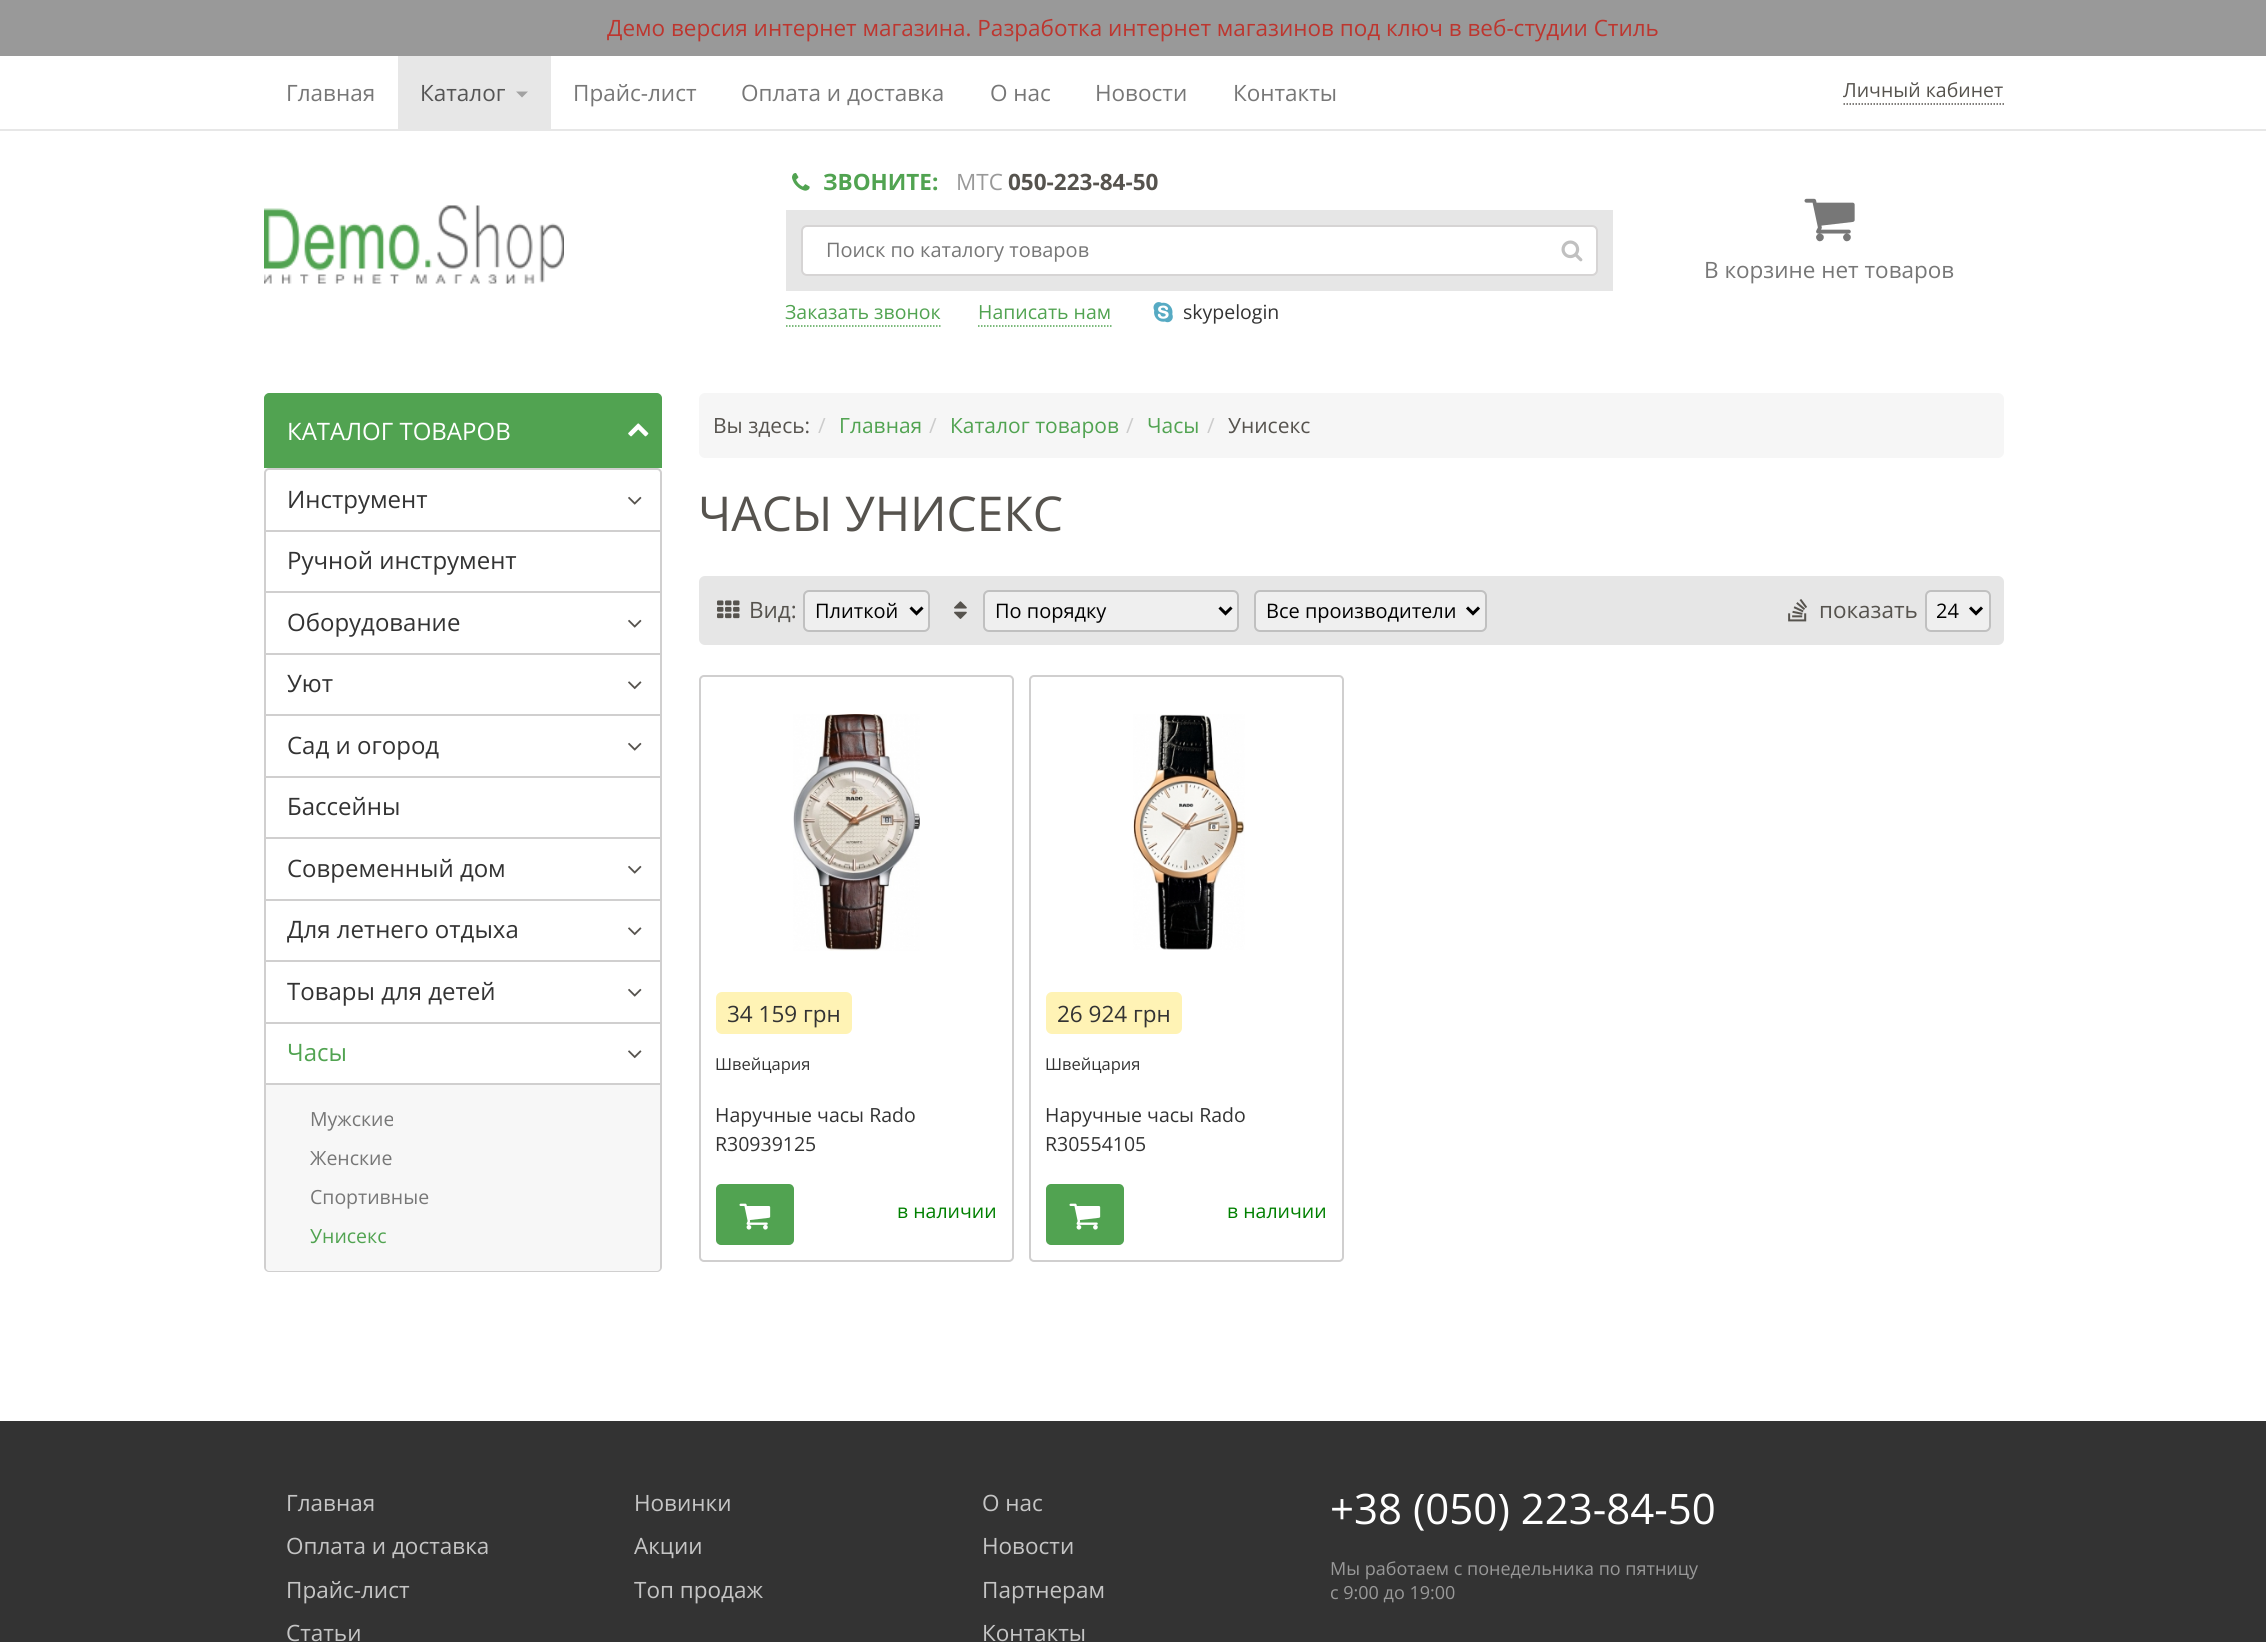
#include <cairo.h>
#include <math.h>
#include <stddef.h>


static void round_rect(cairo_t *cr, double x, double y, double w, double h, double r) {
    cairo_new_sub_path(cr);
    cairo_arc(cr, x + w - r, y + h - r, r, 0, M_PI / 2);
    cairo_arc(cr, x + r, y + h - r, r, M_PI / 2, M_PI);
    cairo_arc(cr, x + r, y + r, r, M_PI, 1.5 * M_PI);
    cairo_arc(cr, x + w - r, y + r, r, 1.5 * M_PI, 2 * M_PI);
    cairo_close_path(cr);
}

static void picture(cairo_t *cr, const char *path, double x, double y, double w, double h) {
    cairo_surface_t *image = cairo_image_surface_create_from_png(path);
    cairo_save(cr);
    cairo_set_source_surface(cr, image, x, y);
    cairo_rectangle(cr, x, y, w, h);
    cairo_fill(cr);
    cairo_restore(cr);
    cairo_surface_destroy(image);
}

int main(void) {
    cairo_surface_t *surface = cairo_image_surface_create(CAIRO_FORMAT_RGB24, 2266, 1642);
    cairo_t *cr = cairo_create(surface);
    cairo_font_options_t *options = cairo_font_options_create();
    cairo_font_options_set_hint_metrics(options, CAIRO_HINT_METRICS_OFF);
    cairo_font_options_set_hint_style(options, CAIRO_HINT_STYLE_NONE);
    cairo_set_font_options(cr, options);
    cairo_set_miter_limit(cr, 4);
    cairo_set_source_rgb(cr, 1, 1, 1);
    cairo_paint(cr);
    cairo_set_source_rgb(cr, 0.6, 0.6, 0.6);
    cairo_rectangle(cr, 0, 0, 2266, 56);
    cairo_fill(cr);
    cairo_select_font_face(cr, "Open Sans", CAIRO_FONT_SLANT_NORMAL, CAIRO_FONT_WEIGHT_NORMAL);
    cairo_set_font_size(cr, 22.5);
    cairo_set_source_rgb(cr, 0.741, 0.212, 0.184);
    cairo_move_to(cr, 607, 36);
    cairo_show_text(cr, "Демо версия интернет магазина. Разработка интернет магазинов под ключ в веб-студии Стиль");
    cairo_set_source_rgb(cr, 0.906, 0.906, 0.906);
    cairo_rectangle(cr, 0, 129, 2266, 2);
    cairo_fill(cr);
    cairo_set_source_rgb(cr, 0.467, 0.467, 0.467);
    cairo_move_to(cr, 286, 101);
    cairo_show_text(cr, "Главная");
    cairo_set_source_rgb(cr, 0.906, 0.906, 0.906);
    cairo_rectangle(cr, 398, 56, 153, 73);
    cairo_fill(cr);
    cairo_set_source_rgb(cr, 0.333, 0.333, 0.333);
    cairo_move_to(cr, 420, 101);
    cairo_show_text(cr, "Каталог");
    cairo_set_source_rgb(cr, 0.635, 0.635, 0.635);
    cairo_new_path(cr);
    cairo_move_to(cr, 516, 91.5);
    cairo_line_to(cr, 528, 91.5);
    cairo_line_to(cr, 522, 97.5);
    cairo_close_path(cr);
    cairo_fill(cr);
    cairo_set_source_rgb(cr, 0.467, 0.467, 0.467);
    cairo_move_to(cr, 573, 101);
    cairo_show_text(cr, "Прайс-лист");
    cairo_move_to(cr, 741, 101);
    cairo_show_text(cr, "Оплата и доставка");
    cairo_move_to(cr, 990, 101);
    cairo_show_text(cr, "О нас");
    cairo_move_to(cr, 1095, 101);
    cairo_show_text(cr, "Новости");
    cairo_move_to(cr, 1233, 101);
    cairo_show_text(cr, "Контакты");
    cairo_set_font_size(cr, 19.5);
    cairo_set_source_rgb(cr, 0.337, 0.325, 0.306);
    cairo_move_to(cr, 1843, 97);
    cairo_show_text(cr, "Личный кабинет");
    cairo_new_path(cr);
    cairo_move_to(cr, 1843.5, 104);
    cairo_line_to(cr, 2004, 104);
    cairo_set_line_width(cr, 1.5);
    cairo_set_dash(cr, (double[]){1.5, 1.5}, 2, 0);
    cairo_stroke(cr);
    picture(cr, "img1.png", 264, 205, 300, 79);
    picture(cr, "img2.png", 792, 173, 18, 18);
    cairo_select_font_face(cr, "Open Sans", CAIRO_FONT_SLANT_NORMAL, CAIRO_FONT_WEIGHT_BOLD);
    cairo_set_font_size(cr, 22.5);
    cairo_set_source_rgb(cr, 0.318, 0.639, 0.318);
    cairo_move_to(cr, 823, 190);
    cairo_show_text(cr, "ЗВОНИТЕ:");
    cairo_select_font_face(cr, "Open Sans", CAIRO_FONT_SLANT_NORMAL, CAIRO_FONT_WEIGHT_NORMAL);
    cairo_set_source_rgb(cr, 0.6, 0.6, 0.6);
    cairo_move_to(cr, 956, 190);
    cairo_show_text(cr, "МТС");
    cairo_select_font_face(cr, "Open Sans", CAIRO_FONT_SLANT_NORMAL, CAIRO_FONT_WEIGHT_BOLD);
    cairo_set_source_rgb(cr, 0.337, 0.325, 0.306);
    cairo_move_to(cr, 1008, 190);
    cairo_show_text(cr, "050-223-84-50");
    cairo_set_source_rgb(cr, 0.902, 0.902, 0.902);
    cairo_rectangle(cr, 786, 210, 827, 81);
    cairo_fill(cr);
    cairo_set_source_rgb(cr, 1, 1, 1);
    round_rect(cr, 802, 226, 795, 49, 5);
    cairo_fill_preserve(cr);
    cairo_set_source_rgb(cr, 0.839, 0.831, 0.831);
    cairo_set_line_width(cr, 2);
    cairo_set_dash(cr, NULL, 0, 0);
    cairo_stroke(cr);
    cairo_select_font_face(cr, "Open Sans", CAIRO_FONT_SLANT_NORMAL, CAIRO_FONT_WEIGHT_NORMAL);
    cairo_set_font_size(cr, 20);
    cairo_set_source_rgb(cr, 0.467, 0.467, 0.467);
    cairo_move_to(cr, 826, 257);
    cairo_show_text(cr, "Поиск по каталогу товаров");
    picture(cr, "img3.png", 1561, 240, 22, 22);
    cairo_set_font_size(cr, 19.5);
    cairo_set_source_rgb(cr, 0.318, 0.639, 0.318);
    cairo_move_to(cr, 785, 319);
    cairo_show_text(cr, "Заказать звонок");
    cairo_new_path(cr);
    cairo_move_to(cr, 786, 326);
    cairo_line_to(cr, 940.5, 326);
    cairo_set_line_width(cr, 1.5);
    cairo_set_dash(cr, (double[]){1.5, 1.5}, 2, 0);
    cairo_stroke(cr);
    cairo_move_to(cr, 978, 319);
    cairo_show_text(cr, "Написать нам");
    cairo_new_path(cr);
    cairo_move_to(cr, 978, 326);
    cairo_line_to(cr, 1111.5, 326);
    cairo_stroke(cr);
    picture(cr, "img4.png", 1153, 302, 20, 21);
    cairo_set_source_rgb(cr, 0.2, 0.2, 0.2);
    cairo_move_to(cr, 1183, 319);
    cairo_show_text(cr, "skypelogin");
    picture(cr, "img5.png", 1804, 198, 51, 44);
    cairo_set_font_size(cr, 22.5);
    cairo_set_source_rgb(cr, 0.467, 0.467, 0.467);
    cairo_move_to(cr, 1704, 278);
    cairo_show_text(cr, "В корзине нет товаров");
    cairo_set_source_rgb(cr, 0.318, 0.639, 0.318);
    cairo_new_path(cr);
    cairo_move_to(cr, 269, 394);
    cairo_line_to(cr, 657, 394);
    cairo_curve_to(cr, 659, 394, 661, 396, 661, 398);
    cairo_line_to(cr, 661, 467);
    cairo_line_to(cr, 265, 467);
    cairo_line_to(cr, 265, 398);
    cairo_curve_to(cr, 265, 396, 267, 394, 269, 394);
    cairo_close_path(cr);
    cairo_fill_preserve(cr);
    cairo_set_line_width(cr, 2);
    cairo_set_dash(cr, NULL, 0, 0);
    cairo_stroke(cr);
    cairo_set_font_size(cr, 24);
    cairo_set_source_rgb(cr, 1, 1, 1);
    cairo_move_to(cr, 287, 440);
    cairo_show_text(cr, "КАТАЛОГ ТОВАРОВ");
    picture(cr, "img6.png", 628, 423, 21, 14);
    round_rect(cr, 265, 469, 396, 802, 4);
    cairo_set_source_rgb(cr, 0.816, 0.812, 0.812);
    cairo_stroke(cr);
    cairo_set_source_rgb(cr, 0.2, 0.2, 0.2);
    cairo_move_to(cr, 287, 508);
    cairo_show_text(cr, "Инструмент");
    picture(cr, "img7.png", 628, 496, 14, 9);
    cairo_set_source_rgb(cr, 0.816, 0.812, 0.812);
    cairo_rectangle(cr, 266, 530, 394, 2);
    cairo_fill(cr);
    cairo_set_source_rgb(cr, 0.2, 0.2, 0.2);
    cairo_move_to(cr, 287, 569);
    cairo_show_text(cr, "Ручной инструмент");
    cairo_set_source_rgb(cr, 0.816, 0.812, 0.812);
    cairo_rectangle(cr, 266, 591, 394, 2);
    cairo_fill(cr);
    cairo_set_source_rgb(cr, 0.2, 0.2, 0.2);
    cairo_move_to(cr, 287, 631);
    cairo_show_text(cr, "Оборудование");
    picture(cr, "img7.png", 628, 619, 14, 9);
    cairo_set_source_rgb(cr, 0.816, 0.812, 0.812);
    cairo_rectangle(cr, 266, 653, 394, 2);
    cairo_fill(cr);
    cairo_set_source_rgb(cr, 0.2, 0.2, 0.2);
    cairo_move_to(cr, 287, 692);
    cairo_show_text(cr, "Уют");
    picture(cr, "img8.png", 628, 681, 14, 9);
    cairo_set_source_rgb(cr, 0.816, 0.812, 0.812);
    cairo_rectangle(cr, 266, 714, 394, 2);
    cairo_fill(cr);
    cairo_set_source_rgb(cr, 0.2, 0.2, 0.2);
    cairo_move_to(cr, 287, 754);
    cairo_show_text(cr, "Сад и огород");
    picture(cr, "img7.png", 628, 742, 14, 9);
    cairo_set_source_rgb(cr, 0.816, 0.812, 0.812);
    cairo_rectangle(cr, 266, 776, 394, 2);
    cairo_fill(cr);
    cairo_set_source_rgb(cr, 0.2, 0.2, 0.2);
    cairo_move_to(cr, 287, 815);
    cairo_show_text(cr, "Бассейны");
    cairo_set_source_rgb(cr, 0.816, 0.812, 0.812);
    cairo_rectangle(cr, 266, 837, 394, 2);
    cairo_fill(cr);
    cairo_set_source_rgb(cr, 0.2, 0.2, 0.2);
    cairo_move_to(cr, 287, 877);
    cairo_show_text(cr, "Современный дом");
    picture(cr, "img7.png", 628, 865, 14, 9);
    cairo_set_source_rgb(cr, 0.816, 0.812, 0.812);
    cairo_rectangle(cr, 266, 899, 394, 2);
    cairo_fill(cr);
    cairo_set_source_rgb(cr, 0.2, 0.2, 0.2);
    cairo_move_to(cr, 287, 938);
    cairo_show_text(cr, "Для летнего отдыха");
    picture(cr, "img8.png", 628, 927, 14, 9);
    cairo_set_source_rgb(cr, 0.816, 0.812, 0.812);
    cairo_rectangle(cr, 266, 960, 394, 2);
    cairo_fill(cr);
    cairo_set_source_rgb(cr, 0.2, 0.2, 0.2);
    cairo_move_to(cr, 287, 1000);
    cairo_show_text(cr, "Товары для детей");
    picture(cr, "img7.png", 628, 988, 14, 9);
    cairo_set_source_rgb(cr, 0.816, 0.812, 0.812);
    cairo_rectangle(cr, 266, 1022, 394, 2);
    cairo_fill(cr);
    cairo_set_source_rgb(cr, 0.318, 0.639, 0.318);
    cairo_move_to(cr, 287, 1061);
    cairo_show_text(cr, "Часы");
    picture(cr, "img8.png", 628, 1050, 14, 9);
    cairo_set_source_rgb(cr, 0.965, 0.965, 0.965);
    cairo_new_path(cr);
    cairo_move_to(cr, 266, 1083);
    cairo_line_to(cr, 660, 1083);
    cairo_line_to(cr, 660, 1268);
    cairo_curve_to(cr, 660, 1269.5, 658.5, 1271, 657, 1271);
    cairo_line_to(cr, 269, 1271);
    cairo_curve_to(cr, 267.5, 1271, 266, 1269.5, 266, 1268);
    cairo_close_path(cr);
    cairo_fill(cr);
    cairo_set_source_rgb(cr, 0.816, 0.812, 0.812);
    cairo_rectangle(cr, 266, 1083, 394, 2);
    cairo_fill(cr);
    cairo_set_font_size(cr, 19.5);
    cairo_set_source_rgb(cr, 0.467, 0.467, 0.467);
    cairo_move_to(cr, 310, 1126);
    cairo_show_text(cr, "Мужские");
    cairo_move_to(cr, 310, 1165);
    cairo_show_text(cr, "Женские");
    cairo_move_to(cr, 310, 1204);
    cairo_show_text(cr, "Спортивные");
    cairo_set_source_rgb(cr, 0.318, 0.639, 0.318);
    cairo_move_to(cr, 310, 1243);
    cairo_show_text(cr, "Унисекс");
    cairo_set_source_rgb(cr, 0.961, 0.961, 0.961);
    round_rect(cr, 699, 393, 1305, 65, 6);
    cairo_fill(cr);
    cairo_set_font_size(cr, 21);
    cairo_set_source_rgb(cr, 0.337, 0.325, 0.306);
    cairo_move_to(cr, 713, 433);
    cairo_show_text(cr, "Вы здесь:");
    cairo_set_source_rgb(cr, 0.8, 0.8, 0.8);
    cairo_move_to(cr, 818, 433);
    cairo_show_text(cr, "/");
    cairo_set_source_rgb(cr, 0.318, 0.639, 0.318);
    cairo_move_to(cr, 839, 433);
    cairo_show_text(cr, "Главная");
    cairo_set_source_rgb(cr, 0.8, 0.8, 0.8);
    cairo_move_to(cr, 929, 433);
    cairo_show_text(cr, "/");
    cairo_set_source_rgb(cr, 0.318, 0.639, 0.318);
    cairo_move_to(cr, 950, 433);
    cairo_show_text(cr, "Каталог товаров");
    cairo_set_source_rgb(cr, 0.8, 0.8, 0.8);
    cairo_move_to(cr, 1126, 433);
    cairo_show_text(cr, "/");
    cairo_set_source_rgb(cr, 0.318, 0.639, 0.318);
    cairo_move_to(cr, 1147, 433);
    cairo_show_text(cr, "Часы");
    cairo_set_source_rgb(cr, 0.8, 0.8, 0.8);
    cairo_move_to(cr, 1207, 433);
    cairo_show_text(cr, "/");
    cairo_set_source_rgb(cr, 0.337, 0.325, 0.306);
    cairo_move_to(cr, 1228, 433);
    cairo_show_text(cr, "Унисекс");
    cairo_set_font_size(cr, 48);
    cairo_move_to(cr, 698, 531);
    cairo_show_text(cr, "ЧАСЫ УНИСЕКС");
    cairo_set_source_rgb(cr, 0.902, 0.902, 0.902);
    round_rect(cr, 700, 577, 1303, 67, 5);
    cairo_fill_preserve(cr);
    cairo_stroke(cr);
    picture(cr, "img9.png", 717, 600, 23, 19);
    cairo_set_font_size(cr, 22.5);
    cairo_set_source_rgb(cr, 0.337, 0.325, 0.306);
    cairo_move_to(cr, 749, 618);
    cairo_show_text(cr, "Вид:");
    cairo_set_source_rgb(cr, 0.937, 0.937, 0.937);
    round_rect(cr, 804, 591, 125, 40, 5);
    cairo_fill_preserve(cr);
    cairo_set_source_rgb(cr, 0.753, 0.753, 0.753);
    cairo_stroke(cr);
    cairo_new_path(cr);
    cairo_move_to(cr, 910.5, 607.5);
    cairo_line_to(cr, 916.5, 613.5);
    cairo_line_to(cr, 922.5, 607.5);
    cairo_set_source_rgb(cr, 0, 0, 0);
    cairo_set_line_width(cr, 3);
    cairo_stroke(cr);
    cairo_set_font_size(cr, 20);
    cairo_move_to(cr, 815, 618);
    cairo_show_text(cr, "Плиткой");
    picture(cr, "img10.png", 954, 601, 13, 18);
    cairo_set_source_rgb(cr, 0.937, 0.937, 0.937);
    round_rect(cr, 984, 591, 254, 40, 5);
    cairo_fill_preserve(cr);
    cairo_set_source_rgb(cr, 0.753, 0.753, 0.753);
    cairo_set_line_width(cr, 2);
    cairo_stroke(cr);
    cairo_new_path(cr);
    cairo_move_to(cr, 1219.5, 607.5);
    cairo_line_to(cr, 1225.5, 613.5);
    cairo_line_to(cr, 1231.5, 607.5);
    cairo_set_source_rgb(cr, 0, 0, 0);
    cairo_set_line_width(cr, 3);
    cairo_stroke(cr);
    cairo_move_to(cr, 995, 618);
    cairo_show_text(cr, "По порядку");
    cairo_set_source_rgb(cr, 0.937, 0.937, 0.937);
    round_rect(cr, 1255, 591, 231, 40, 5);
    cairo_fill_preserve(cr);
    cairo_set_source_rgb(cr, 0.753, 0.753, 0.753);
    cairo_set_line_width(cr, 2);
    cairo_stroke(cr);
    cairo_new_path(cr);
    cairo_move_to(cr, 1467, 607.5);
    cairo_line_to(cr, 1473, 613.5);
    cairo_line_to(cr, 1479, 607.5);
    cairo_set_source_rgb(cr, 0, 0, 0);
    cairo_set_line_width(cr, 3);
    cairo_stroke(cr);
    cairo_move_to(cr, 1266, 618);
    cairo_show_text(cr, "Все производители");
    picture(cr, "img11.png", 1788, 599, 19, 23);
    cairo_set_font_size(cr, 22.5);
    cairo_set_source_rgb(cr, 0.337, 0.325, 0.306);
    cairo_move_to(cr, 1819, 618);
    cairo_show_text(cr, "показать");
    cairo_set_source_rgb(cr, 0.937, 0.937, 0.937);
    round_rect(cr, 1926, 591, 64, 40, 5);
    cairo_fill_preserve(cr);
    cairo_set_source_rgb(cr, 0.753, 0.753, 0.753);
    cairo_set_line_width(cr, 2);
    cairo_stroke(cr);
    cairo_new_path(cr);
    cairo_move_to(cr, 1970, 607.5);
    cairo_line_to(cr, 1976, 613.5);
    cairo_line_to(cr, 1982, 607.5);
    cairo_set_source_rgb(cr, 0, 0, 0);
    cairo_set_line_width(cr, 3);
    cairo_stroke(cr);
    cairo_set_font_size(cr, 20);
    cairo_move_to(cr, 1936, 618);
    cairo_show_text(cr, "24");
    round_rect(cr, 700, 676, 313, 585, 4);
    cairo_set_source_rgb(cr, 0.816, 0.812, 0.812);
    cairo_set_line_width(cr, 2);
    cairo_stroke(cr);
    picture(cr, "img12.png", 793, 714, 127, 237);
    cairo_set_source_rgb(cr, 1, 0.953, 0.71);
    round_rect(cr, 716, 992, 136, 42, 6);
    cairo_fill(cr);
    cairo_set_font_size(cr, 22.5);
    cairo_set_source_rgb(cr, 0.2, 0.2, 0.2);
    cairo_move_to(cr, 727, 1022);
    cairo_show_text(cr, "34 159 грн");
    cairo_set_font_size(cr, 16.5);
    cairo_move_to(cr, 715, 1070);
    cairo_show_text(cr, "Швейцария");
    cairo_set_font_size(cr, 19.5);
    cairo_move_to(cr, 715, 1122);
    cairo_show_text(cr, "Наручные часы Rado");
    cairo_move_to(cr, 715, 1151);
    cairo_show_text(cr, "R30939125");
    cairo_set_source_rgb(cr, 0.318, 0.639, 0.318);
    round_rect(cr, 717, 1185, 76, 59, 4);
    cairo_fill_preserve(cr);
    cairo_stroke(cr);
    picture(cr, "img13.png", 739, 1203, 32, 27);
    cairo_set_source_rgb(cr, 0, 0.502, 0);
    cairo_move_to(cr, 897, 1218);
    cairo_show_text(cr, "в наличии");
    round_rect(cr, 1030, 676, 313, 585, 4);
    cairo_set_source_rgb(cr, 0.816, 0.812, 0.812);
    cairo_stroke(cr);
    picture(cr, "img14.png", 1133, 714, 112, 236);
    cairo_set_source_rgb(cr, 1, 0.953, 0.71);
    round_rect(cr, 1046, 992, 136, 42, 6);
    cairo_fill(cr);
    cairo_set_font_size(cr, 22.5);
    cairo_set_source_rgb(cr, 0.2, 0.2, 0.2);
    cairo_move_to(cr, 1057, 1022);
    cairo_show_text(cr, "26 924 грн");
    cairo_set_font_size(cr, 16.5);
    cairo_move_to(cr, 1045, 1070);
    cairo_show_text(cr, "Швейцария");
    cairo_set_font_size(cr, 19.5);
    cairo_move_to(cr, 1045, 1122);
    cairo_show_text(cr, "Наручные часы Rado");
    cairo_move_to(cr, 1045, 1151);
    cairo_show_text(cr, "R30554105");
    cairo_set_source_rgb(cr, 0.318, 0.639, 0.318);
    round_rect(cr, 1047, 1185, 76, 59, 4);
    cairo_fill_preserve(cr);
    cairo_stroke(cr);
    picture(cr, "img13.png", 1069, 1203, 32, 27);
    cairo_set_source_rgb(cr, 0, 0.502, 0);
    cairo_move_to(cr, 1227, 1218);
    cairo_show_text(cr, "в наличии");
    cairo_set_source_rgb(cr, 0.2, 0.2, 0.2);
    cairo_rectangle(cr, 0, 1421, 2266, 221);
    cairo_fill(cr);
    cairo_set_font_size(cr, 22.5);
    cairo_set_source_rgb(cr, 0.773, 0.773, 0.773);
    cairo_move_to(cr, 286, 1511);
    cairo_show_text(cr, "Главная");
    cairo_move_to(cr, 286, 1554);
    cairo_show_text(cr, "Оплата и доставка");
    cairo_move_to(cr, 286, 1598);
    cairo_show_text(cr, "Прайс-лист");
    cairo_move_to(cr, 286, 1641);
    cairo_show_text(cr, "Статьи");
    cairo_move_to(cr, 634, 1511);
    cairo_show_text(cr, "Новинки");
    cairo_move_to(cr, 634, 1554);
    cairo_show_text(cr, "Акции");
    cairo_move_to(cr, 634, 1598);
    cairo_show_text(cr, "Топ продаж");
    cairo_move_to(cr, 982, 1511);
    cairo_show_text(cr, "О нас");
    cairo_move_to(cr, 982, 1554);
    cairo_show_text(cr, "Новости");
    cairo_move_to(cr, 982, 1598);
    cairo_show_text(cr, "Партнерам");
    cairo_move_to(cr, 982, 1641);
    cairo_show_text(cr, "Контакты");
    cairo_set_font_size(cr, 42);
    cairo_set_source_rgb(cr, 1, 1, 1);
    cairo_move_to(cr, 1330, 1524);
    cairo_show_text(cr, "+38 (050) 223-84-50");
    cairo_set_font_size(cr, 18);
    cairo_set_source_rgb(cr, 0.6, 0.6, 0.6);
    cairo_move_to(cr, 1330, 1575);
    cairo_show_text(cr, "Мы работаем с понедельника по пятницу");
    cairo_move_to(cr, 1330, 1599);
    cairo_show_text(cr, "с 9:00 до 19:00");
    cairo_surface_write_to_png(surface, "page.png");
    cairo_font_options_destroy(options);
    cairo_destroy(cr);
    cairo_surface_destroy(surface);
    return 0;
}
